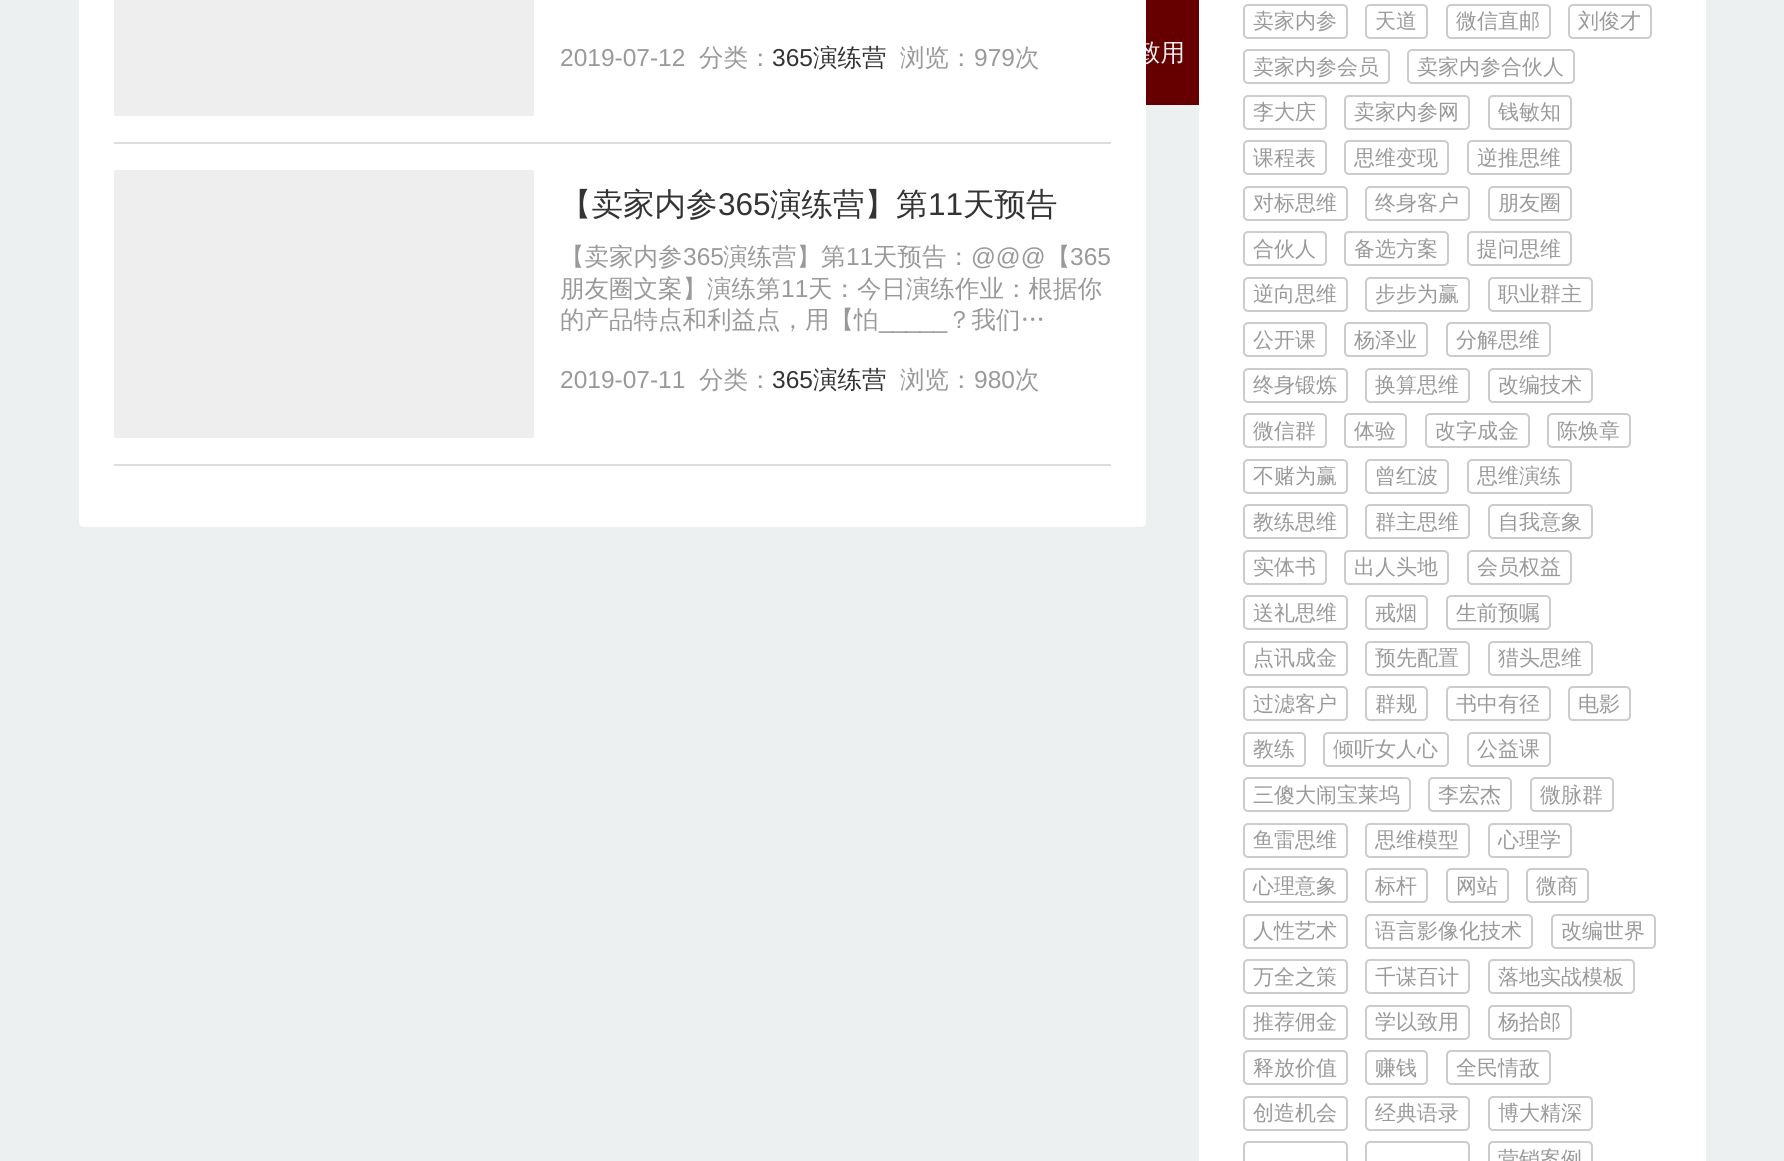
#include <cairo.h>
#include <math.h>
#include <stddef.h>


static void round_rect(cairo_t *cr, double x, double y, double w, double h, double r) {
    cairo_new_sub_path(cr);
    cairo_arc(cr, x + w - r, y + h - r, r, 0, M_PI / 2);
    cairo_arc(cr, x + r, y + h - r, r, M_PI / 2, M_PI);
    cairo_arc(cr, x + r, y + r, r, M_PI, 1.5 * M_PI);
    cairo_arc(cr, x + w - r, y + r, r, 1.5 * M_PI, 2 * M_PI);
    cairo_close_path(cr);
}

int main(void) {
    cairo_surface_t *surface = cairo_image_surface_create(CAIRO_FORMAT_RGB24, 1784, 1161);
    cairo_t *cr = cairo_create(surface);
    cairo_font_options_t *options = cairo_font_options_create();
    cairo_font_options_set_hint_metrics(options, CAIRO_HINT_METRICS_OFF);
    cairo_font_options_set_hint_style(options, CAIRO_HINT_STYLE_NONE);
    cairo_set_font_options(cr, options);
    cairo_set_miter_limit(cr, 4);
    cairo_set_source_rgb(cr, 0.925, 0.941, 0.945);
    cairo_paint(cr);
    cairo_set_source_rgb(cr, 0.4, 0, 0);
    cairo_rectangle(cr, 1146, 0, 53, 105);
    cairo_fill(cr);
    cairo_select_font_face(cr, "WenQuanYi Zen Hei Medium", CAIRO_FONT_SLANT_NORMAL, CAIRO_FONT_WEIGHT_NORMAL);
    cairo_set_font_size(cr, 24.5);
    cairo_set_source_rgb(cr, 0.925, 0.937, 0.945);
    cairo_move_to(cr, 1136, 61);
    cairo_show_text(cr, "致用");
    cairo_set_source_rgb(cr, 1, 1, 1);
    round_rect(cr, 79, -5, 1067, 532, 5);
    cairo_fill(cr);
    cairo_set_source_rgb(cr, 0.867, 0.867, 0.867);
    cairo_rectangle(cr, 114, 142, 997, 2);
    cairo_fill(cr);
    cairo_set_source_rgb(cr, 0.933, 0.933, 0.933);
    cairo_rectangle(cr, 114, 0, 420, 116);
    cairo_fill(cr);
    cairo_select_font_face(cr, "Liberation Sans", CAIRO_FONT_SLANT_NORMAL, CAIRO_FONT_WEIGHT_NORMAL);
    cairo_set_source_rgb(cr, 0.6, 0.6, 0.6);
    cairo_move_to(cr, 560, 66);
    cairo_show_text(cr, "2019-07-12");
    cairo_select_font_face(cr, "WenQuanYi Zen Hei Medium", CAIRO_FONT_SLANT_NORMAL, CAIRO_FONT_WEIGHT_NORMAL);
    cairo_move_to(cr, 699, 66);
    cairo_show_text(cr, "分类：");
    cairo_select_font_face(cr, "Liberation Sans", CAIRO_FONT_SLANT_NORMAL, CAIRO_FONT_WEIGHT_NORMAL);
    cairo_set_source_rgb(cr, 0.2, 0.2, 0.2);
    cairo_move_to(cr, 772, 66);
    cairo_show_text(cr, "365");
    cairo_select_font_face(cr, "WenQuanYi Zen Hei Medium", CAIRO_FONT_SLANT_NORMAL, CAIRO_FONT_WEIGHT_NORMAL);
    cairo_move_to(cr, 813, 66);
    cairo_show_text(cr, "演练营");
    cairo_set_source_rgb(cr, 0.6, 0.6, 0.6);
    cairo_move_to(cr, 900, 66);
    cairo_show_text(cr, "浏览：");
    cairo_select_font_face(cr, "Liberation Sans", CAIRO_FONT_SLANT_NORMAL, CAIRO_FONT_WEIGHT_NORMAL);
    cairo_move_to(cr, 974, 66);
    cairo_show_text(cr, "979");
    cairo_select_font_face(cr, "WenQuanYi Zen Hei Medium", CAIRO_FONT_SLANT_NORMAL, CAIRO_FONT_WEIGHT_NORMAL);
    cairo_move_to(cr, 1015, 66);
    cairo_show_text(cr, "次");
    cairo_set_source_rgb(cr, 0.867, 0.867, 0.867);
    cairo_rectangle(cr, 114, 464, 997, 2);
    cairo_fill(cr);
    cairo_set_source_rgb(cr, 0.933, 0.933, 0.933);
    cairo_rectangle(cr, 114, 170, 420, 268);
    cairo_fill(cr);
    cairo_set_font_size(cr, 31.5);
    cairo_set_source_rgb(cr, 0.2, 0.2, 0.2);
    cairo_move_to(cr, 560, 215);
    cairo_show_text(cr, "【卖家内参");
    cairo_select_font_face(cr, "Liberation Sans", CAIRO_FONT_SLANT_NORMAL, CAIRO_FONT_WEIGHT_NORMAL);
    cairo_move_to(cr, 718, 215);
    cairo_show_text(cr, "365");
    cairo_select_font_face(cr, "WenQuanYi Zen Hei Medium", CAIRO_FONT_SLANT_NORMAL, CAIRO_FONT_WEIGHT_NORMAL);
    cairo_move_to(cr, 770, 215);
    cairo_show_text(cr, "演练营】第");
    cairo_select_font_face(cr, "Liberation Sans", CAIRO_FONT_SLANT_NORMAL, CAIRO_FONT_WEIGHT_NORMAL);
    cairo_move_to(cr, 928, 215);
    cairo_show_text(cr, "11");
    cairo_select_font_face(cr, "WenQuanYi Zen Hei Medium", CAIRO_FONT_SLANT_NORMAL, CAIRO_FONT_WEIGHT_NORMAL);
    cairo_move_to(cr, 963, 215);
    cairo_show_text(cr, "天预告");
    cairo_set_font_size(cr, 24.5);
    cairo_set_source_rgb(cr, 0.6, 0.6, 0.6);
    cairo_move_to(cr, 560, 265);
    cairo_show_text(cr, "【卖家内参");
    cairo_select_font_face(cr, "Liberation Sans", CAIRO_FONT_SLANT_NORMAL, CAIRO_FONT_WEIGHT_NORMAL);
    cairo_move_to(cr, 683, 265);
    cairo_show_text(cr, "365");
    cairo_select_font_face(cr, "WenQuanYi Zen Hei Medium", CAIRO_FONT_SLANT_NORMAL, CAIRO_FONT_WEIGHT_NORMAL);
    cairo_move_to(cr, 723, 265);
    cairo_show_text(cr, "演练营】第");
    cairo_select_font_face(cr, "Liberation Sans", CAIRO_FONT_SLANT_NORMAL, CAIRO_FONT_WEIGHT_NORMAL);
    cairo_move_to(cr, 846, 265);
    cairo_show_text(cr, "11");
    cairo_select_font_face(cr, "WenQuanYi Zen Hei Medium", CAIRO_FONT_SLANT_NORMAL, CAIRO_FONT_WEIGHT_NORMAL);
    cairo_move_to(cr, 873, 265);
    cairo_show_text(cr, "天预告：");
    cairo_select_font_face(cr, "Liberation Sans", CAIRO_FONT_SLANT_NORMAL, CAIRO_FONT_WEIGHT_NORMAL);
    cairo_move_to(cr, 971, 265);
    cairo_show_text(cr, "@@@");
    cairo_select_font_face(cr, "WenQuanYi Zen Hei Medium", CAIRO_FONT_SLANT_NORMAL, CAIRO_FONT_WEIGHT_NORMAL);
    cairo_move_to(cr, 1046, 265);
    cairo_show_text(cr, "【");
    cairo_select_font_face(cr, "Liberation Sans", CAIRO_FONT_SLANT_NORMAL, CAIRO_FONT_WEIGHT_NORMAL);
    cairo_move_to(cr, 1070, 265);
    cairo_show_text(cr, "365");
    cairo_select_font_face(cr, "WenQuanYi Zen Hei Medium", CAIRO_FONT_SLANT_NORMAL, CAIRO_FONT_WEIGHT_NORMAL);
    cairo_move_to(cr, 560, 297);
    cairo_show_text(cr, "朋友圈文案】演练第");
    cairo_select_font_face(cr, "Liberation Sans", CAIRO_FONT_SLANT_NORMAL, CAIRO_FONT_WEIGHT_NORMAL);
    cairo_move_to(cr, 781, 297);
    cairo_show_text(cr, "11");
    cairo_select_font_face(cr, "WenQuanYi Zen Hei Medium", CAIRO_FONT_SLANT_NORMAL, CAIRO_FONT_WEIGHT_NORMAL);
    cairo_move_to(cr, 808, 297);
    cairo_show_text(cr, "天：今日演练作业：根据你");
    cairo_move_to(cr, 560, 328);
    cairo_show_text(cr, "的产品特点和利益点，用【怕");
    cairo_select_font_face(cr, "Liberation Sans", CAIRO_FONT_SLANT_NORMAL, CAIRO_FONT_WEIGHT_NORMAL);
    cairo_move_to(cr, 879, 328);
    cairo_show_text(cr, "_____");
    cairo_select_font_face(cr, "WenQuanYi Zen Hei Medium", CAIRO_FONT_SLANT_NORMAL, CAIRO_FONT_WEIGHT_NORMAL);
    cairo_move_to(cr, 947, 328);
    cairo_show_text(cr, "？我们…");
    cairo_select_font_face(cr, "Liberation Sans", CAIRO_FONT_SLANT_NORMAL, CAIRO_FONT_WEIGHT_NORMAL);
    cairo_move_to(cr, 560, 388);
    cairo_show_text(cr, "2019-07-11");
    cairo_select_font_face(cr, "WenQuanYi Zen Hei Medium", CAIRO_FONT_SLANT_NORMAL, CAIRO_FONT_WEIGHT_NORMAL);
    cairo_move_to(cr, 699, 388);
    cairo_show_text(cr, "分类：");
    cairo_select_font_face(cr, "Liberation Sans", CAIRO_FONT_SLANT_NORMAL, CAIRO_FONT_WEIGHT_NORMAL);
    cairo_set_source_rgb(cr, 0.2, 0.2, 0.2);
    cairo_move_to(cr, 772, 388);
    cairo_show_text(cr, "365");
    cairo_select_font_face(cr, "WenQuanYi Zen Hei Medium", CAIRO_FONT_SLANT_NORMAL, CAIRO_FONT_WEIGHT_NORMAL);
    cairo_move_to(cr, 813, 388);
    cairo_show_text(cr, "演练营");
    cairo_set_source_rgb(cr, 0.6, 0.6, 0.6);
    cairo_move_to(cr, 900, 388);
    cairo_show_text(cr, "浏览：");
    cairo_select_font_face(cr, "Liberation Sans", CAIRO_FONT_SLANT_NORMAL, CAIRO_FONT_WEIGHT_NORMAL);
    cairo_move_to(cr, 974, 388);
    cairo_show_text(cr, "980");
    cairo_select_font_face(cr, "WenQuanYi Zen Hei Medium", CAIRO_FONT_SLANT_NORMAL, CAIRO_FONT_WEIGHT_NORMAL);
    cairo_move_to(cr, 1015, 388);
    cairo_show_text(cr, "次");
    cairo_set_source_rgb(cr, 1, 1, 1);
    cairo_rectangle(cr, 1199, 0, 507, 1161);
    cairo_fill(cr);
    round_rect(cr, 1244, 5, 103, 33, 4);
    cairo_set_source_rgb(cr, 0.8, 0.8, 0.8);
    cairo_stroke(cr);
    cairo_set_font_size(cr, 21);
    cairo_set_source_rgb(cr, 0.6, 0.6, 0.6);
    cairo_move_to(cr, 1253, 28);
    cairo_show_text(cr, "卖家内参");
    round_rect(cr, 1366, 5, 61, 33, 4);
    cairo_set_source_rgb(cr, 0.8, 0.8, 0.8);
    cairo_stroke(cr);
    cairo_set_source_rgb(cr, 0.6, 0.6, 0.6);
    cairo_move_to(cr, 1375, 28);
    cairo_show_text(cr, "天道");
    round_rect(cr, 1447, 5, 103, 33, 4);
    cairo_set_source_rgb(cr, 0.8, 0.8, 0.8);
    cairo_stroke(cr);
    cairo_set_source_rgb(cr, 0.6, 0.6, 0.6);
    cairo_move_to(cr, 1456, 28);
    cairo_show_text(cr, "微信直邮");
    round_rect(cr, 1569, 5, 82, 33, 4);
    cairo_set_source_rgb(cr, 0.8, 0.8, 0.8);
    cairo_stroke(cr);
    cairo_set_source_rgb(cr, 0.6, 0.6, 0.6);
    cairo_move_to(cr, 1578, 28);
    cairo_show_text(cr, "刘俊才");
    round_rect(cr, 1244, 50, 145, 33, 4);
    cairo_set_source_rgb(cr, 0.8, 0.8, 0.8);
    cairo_stroke(cr);
    cairo_set_source_rgb(cr, 0.6, 0.6, 0.6);
    cairo_move_to(cr, 1253, 74);
    cairo_show_text(cr, "卖家内参会员");
    round_rect(cr, 1408, 50, 166, 33, 4);
    cairo_set_source_rgb(cr, 0.8, 0.8, 0.8);
    cairo_stroke(cr);
    cairo_set_source_rgb(cr, 0.6, 0.6, 0.6);
    cairo_move_to(cr, 1417, 74);
    cairo_show_text(cr, "卖家内参合伙人");
    round_rect(cr, 1244, 96, 82, 33, 4);
    cairo_set_source_rgb(cr, 0.8, 0.8, 0.8);
    cairo_stroke(cr);
    cairo_set_source_rgb(cr, 0.6, 0.6, 0.6);
    cairo_move_to(cr, 1253, 119);
    cairo_show_text(cr, "李大庆");
    round_rect(cr, 1345, 96, 124, 33, 4);
    cairo_set_source_rgb(cr, 0.8, 0.8, 0.8);
    cairo_stroke(cr);
    cairo_set_source_rgb(cr, 0.6, 0.6, 0.6);
    cairo_move_to(cr, 1354, 119);
    cairo_show_text(cr, "卖家内参网");
    round_rect(cr, 1489, 96, 82, 33, 4);
    cairo_set_source_rgb(cr, 0.8, 0.8, 0.8);
    cairo_stroke(cr);
    cairo_set_source_rgb(cr, 0.6, 0.6, 0.6);
    cairo_move_to(cr, 1498, 119);
    cairo_show_text(cr, "钱敏知");
    round_rect(cr, 1244, 141, 82, 33, 4);
    cairo_set_source_rgb(cr, 0.8, 0.8, 0.8);
    cairo_stroke(cr);
    cairo_set_source_rgb(cr, 0.6, 0.6, 0.6);
    cairo_move_to(cr, 1253, 165);
    cairo_show_text(cr, "课程表");
    round_rect(cr, 1345, 141, 103, 33, 4);
    cairo_set_source_rgb(cr, 0.8, 0.8, 0.8);
    cairo_stroke(cr);
    cairo_set_source_rgb(cr, 0.6, 0.6, 0.6);
    cairo_move_to(cr, 1354, 165);
    cairo_show_text(cr, "思维变现");
    round_rect(cr, 1468, 141, 103, 33, 4);
    cairo_set_source_rgb(cr, 0.8, 0.8, 0.8);
    cairo_stroke(cr);
    cairo_set_source_rgb(cr, 0.6, 0.6, 0.6);
    cairo_move_to(cr, 1477, 165);
    cairo_show_text(cr, "逆推思维");
    round_rect(cr, 1244, 187, 103, 33, 4);
    cairo_set_source_rgb(cr, 0.8, 0.8, 0.8);
    cairo_stroke(cr);
    cairo_set_source_rgb(cr, 0.6, 0.6, 0.6);
    cairo_move_to(cr, 1253, 210);
    cairo_show_text(cr, "对标思维");
    round_rect(cr, 1366, 187, 103, 33, 4);
    cairo_set_source_rgb(cr, 0.8, 0.8, 0.8);
    cairo_stroke(cr);
    cairo_set_source_rgb(cr, 0.6, 0.6, 0.6);
    cairo_move_to(cr, 1375, 210);
    cairo_show_text(cr, "终身客户");
    round_rect(cr, 1489, 187, 82, 33, 4);
    cairo_set_source_rgb(cr, 0.8, 0.8, 0.8);
    cairo_stroke(cr);
    cairo_set_source_rgb(cr, 0.6, 0.6, 0.6);
    cairo_move_to(cr, 1498, 210);
    cairo_show_text(cr, "朋友圈");
    round_rect(cr, 1244, 232, 82, 33, 4);
    cairo_set_source_rgb(cr, 0.8, 0.8, 0.8);
    cairo_stroke(cr);
    cairo_set_source_rgb(cr, 0.6, 0.6, 0.6);
    cairo_move_to(cr, 1253, 256);
    cairo_show_text(cr, "合伙人");
    round_rect(cr, 1345, 232, 103, 33, 4);
    cairo_set_source_rgb(cr, 0.8, 0.8, 0.8);
    cairo_stroke(cr);
    cairo_set_source_rgb(cr, 0.6, 0.6, 0.6);
    cairo_move_to(cr, 1354, 256);
    cairo_show_text(cr, "备选方案");
    round_rect(cr, 1468, 232, 103, 33, 4);
    cairo_set_source_rgb(cr, 0.8, 0.8, 0.8);
    cairo_stroke(cr);
    cairo_set_source_rgb(cr, 0.6, 0.6, 0.6);
    cairo_move_to(cr, 1477, 256);
    cairo_show_text(cr, "提问思维");
    round_rect(cr, 1244, 278, 103, 33, 4);
    cairo_set_source_rgb(cr, 0.8, 0.8, 0.8);
    cairo_stroke(cr);
    cairo_set_source_rgb(cr, 0.6, 0.6, 0.6);
    cairo_move_to(cr, 1253, 301);
    cairo_show_text(cr, "逆向思维");
    round_rect(cr, 1366, 278, 103, 33, 4);
    cairo_set_source_rgb(cr, 0.8, 0.8, 0.8);
    cairo_stroke(cr);
    cairo_set_source_rgb(cr, 0.6, 0.6, 0.6);
    cairo_move_to(cr, 1375, 301);
    cairo_show_text(cr, "步步为赢");
    round_rect(cr, 1489, 278, 103, 33, 4);
    cairo_set_source_rgb(cr, 0.8, 0.8, 0.8);
    cairo_stroke(cr);
    cairo_set_source_rgb(cr, 0.6, 0.6, 0.6);
    cairo_move_to(cr, 1498, 301);
    cairo_show_text(cr, "职业群主");
    round_rect(cr, 1244, 323, 82, 33, 4);
    cairo_set_source_rgb(cr, 0.8, 0.8, 0.8);
    cairo_stroke(cr);
    cairo_set_source_rgb(cr, 0.6, 0.6, 0.6);
    cairo_move_to(cr, 1253, 347);
    cairo_show_text(cr, "公开课");
    round_rect(cr, 1345, 323, 82, 33, 4);
    cairo_set_source_rgb(cr, 0.8, 0.8, 0.8);
    cairo_stroke(cr);
    cairo_set_source_rgb(cr, 0.6, 0.6, 0.6);
    cairo_move_to(cr, 1354, 347);
    cairo_show_text(cr, "杨泽业");
    round_rect(cr, 1447, 323, 103, 33, 4);
    cairo_set_source_rgb(cr, 0.8, 0.8, 0.8);
    cairo_stroke(cr);
    cairo_set_source_rgb(cr, 0.6, 0.6, 0.6);
    cairo_move_to(cr, 1456, 347);
    cairo_show_text(cr, "分解思维");
    round_rect(cr, 1244, 369, 103, 33, 4);
    cairo_set_source_rgb(cr, 0.8, 0.8, 0.8);
    cairo_stroke(cr);
    cairo_set_source_rgb(cr, 0.6, 0.6, 0.6);
    cairo_move_to(cr, 1253, 392);
    cairo_show_text(cr, "终身锻炼");
    round_rect(cr, 1366, 369, 103, 33, 4);
    cairo_set_source_rgb(cr, 0.8, 0.8, 0.8);
    cairo_stroke(cr);
    cairo_set_source_rgb(cr, 0.6, 0.6, 0.6);
    cairo_move_to(cr, 1375, 392);
    cairo_show_text(cr, "换算思维");
    round_rect(cr, 1489, 369, 103, 33, 4);
    cairo_set_source_rgb(cr, 0.8, 0.8, 0.8);
    cairo_stroke(cr);
    cairo_set_source_rgb(cr, 0.6, 0.6, 0.6);
    cairo_move_to(cr, 1498, 392);
    cairo_show_text(cr, "改编技术");
    round_rect(cr, 1244, 414, 82, 33, 4);
    cairo_set_source_rgb(cr, 0.8, 0.8, 0.8);
    cairo_stroke(cr);
    cairo_set_source_rgb(cr, 0.6, 0.6, 0.6);
    cairo_move_to(cr, 1253, 438);
    cairo_show_text(cr, "微信群");
    round_rect(cr, 1345, 414, 61, 33, 4);
    cairo_set_source_rgb(cr, 0.8, 0.8, 0.8);
    cairo_stroke(cr);
    cairo_set_source_rgb(cr, 0.6, 0.6, 0.6);
    cairo_move_to(cr, 1354, 438);
    cairo_show_text(cr, "体验");
    round_rect(cr, 1426, 414, 103, 33, 4);
    cairo_set_source_rgb(cr, 0.8, 0.8, 0.8);
    cairo_stroke(cr);
    cairo_set_source_rgb(cr, 0.6, 0.6, 0.6);
    cairo_move_to(cr, 1435, 438);
    cairo_show_text(cr, "改字成金");
    round_rect(cr, 1548, 414, 82, 33, 4);
    cairo_set_source_rgb(cr, 0.8, 0.8, 0.8);
    cairo_stroke(cr);
    cairo_set_source_rgb(cr, 0.6, 0.6, 0.6);
    cairo_move_to(cr, 1557, 438);
    cairo_show_text(cr, "陈焕章");
    round_rect(cr, 1244, 460, 103, 33, 4);
    cairo_set_source_rgb(cr, 0.8, 0.8, 0.8);
    cairo_stroke(cr);
    cairo_set_source_rgb(cr, 0.6, 0.6, 0.6);
    cairo_move_to(cr, 1253, 483);
    cairo_show_text(cr, "不赌为赢");
    round_rect(cr, 1366, 460, 82, 33, 4);
    cairo_set_source_rgb(cr, 0.8, 0.8, 0.8);
    cairo_stroke(cr);
    cairo_set_source_rgb(cr, 0.6, 0.6, 0.6);
    cairo_move_to(cr, 1375, 483);
    cairo_show_text(cr, "曾红波");
    round_rect(cr, 1468, 460, 103, 33, 4);
    cairo_set_source_rgb(cr, 0.8, 0.8, 0.8);
    cairo_stroke(cr);
    cairo_set_source_rgb(cr, 0.6, 0.6, 0.6);
    cairo_move_to(cr, 1477, 483);
    cairo_show_text(cr, "思维演练");
    round_rect(cr, 1244, 505, 103, 33, 4);
    cairo_set_source_rgb(cr, 0.8, 0.8, 0.8);
    cairo_stroke(cr);
    cairo_set_source_rgb(cr, 0.6, 0.6, 0.6);
    cairo_move_to(cr, 1253, 529);
    cairo_show_text(cr, "教练思维");
    round_rect(cr, 1366, 505, 103, 33, 4);
    cairo_set_source_rgb(cr, 0.8, 0.8, 0.8);
    cairo_stroke(cr);
    cairo_set_source_rgb(cr, 0.6, 0.6, 0.6);
    cairo_move_to(cr, 1375, 529);
    cairo_show_text(cr, "群主思维");
    round_rect(cr, 1489, 505, 103, 33, 4);
    cairo_set_source_rgb(cr, 0.8, 0.8, 0.8);
    cairo_stroke(cr);
    cairo_set_source_rgb(cr, 0.6, 0.6, 0.6);
    cairo_move_to(cr, 1498, 529);
    cairo_show_text(cr, "自我意象");
    round_rect(cr, 1244, 551, 82, 33, 4);
    cairo_set_source_rgb(cr, 0.8, 0.8, 0.8);
    cairo_stroke(cr);
    cairo_set_source_rgb(cr, 0.6, 0.6, 0.6);
    cairo_move_to(cr, 1253, 574);
    cairo_show_text(cr, "实体书");
    round_rect(cr, 1345, 551, 103, 33, 4);
    cairo_set_source_rgb(cr, 0.8, 0.8, 0.8);
    cairo_stroke(cr);
    cairo_set_source_rgb(cr, 0.6, 0.6, 0.6);
    cairo_move_to(cr, 1354, 574);
    cairo_show_text(cr, "出人头地");
    round_rect(cr, 1468, 551, 103, 33, 4);
    cairo_set_source_rgb(cr, 0.8, 0.8, 0.8);
    cairo_stroke(cr);
    cairo_set_source_rgb(cr, 0.6, 0.6, 0.6);
    cairo_move_to(cr, 1477, 574);
    cairo_show_text(cr, "会员权益");
    round_rect(cr, 1244, 596, 103, 33, 4);
    cairo_set_source_rgb(cr, 0.8, 0.8, 0.8);
    cairo_stroke(cr);
    cairo_set_source_rgb(cr, 0.6, 0.6, 0.6);
    cairo_move_to(cr, 1253, 620);
    cairo_show_text(cr, "送礼思维");
    round_rect(cr, 1366, 596, 61, 33, 4);
    cairo_set_source_rgb(cr, 0.8, 0.8, 0.8);
    cairo_stroke(cr);
    cairo_set_source_rgb(cr, 0.6, 0.6, 0.6);
    cairo_move_to(cr, 1375, 620);
    cairo_show_text(cr, "戒烟");
    round_rect(cr, 1447, 596, 103, 33, 4);
    cairo_set_source_rgb(cr, 0.8, 0.8, 0.8);
    cairo_stroke(cr);
    cairo_set_source_rgb(cr, 0.6, 0.6, 0.6);
    cairo_move_to(cr, 1456, 620);
    cairo_show_text(cr, "生前预嘱");
    round_rect(cr, 1244, 642, 103, 33, 4);
    cairo_set_source_rgb(cr, 0.8, 0.8, 0.8);
    cairo_stroke(cr);
    cairo_set_source_rgb(cr, 0.6, 0.6, 0.6);
    cairo_move_to(cr, 1253, 665);
    cairo_show_text(cr, "点讯成金");
    round_rect(cr, 1366, 642, 103, 33, 4);
    cairo_set_source_rgb(cr, 0.8, 0.8, 0.8);
    cairo_stroke(cr);
    cairo_set_source_rgb(cr, 0.6, 0.6, 0.6);
    cairo_move_to(cr, 1375, 665);
    cairo_show_text(cr, "预先配置");
    round_rect(cr, 1489, 642, 103, 33, 4);
    cairo_set_source_rgb(cr, 0.8, 0.8, 0.8);
    cairo_stroke(cr);
    cairo_set_source_rgb(cr, 0.6, 0.6, 0.6);
    cairo_move_to(cr, 1498, 665);
    cairo_show_text(cr, "猎头思维");
    round_rect(cr, 1244, 687, 103, 33, 4);
    cairo_set_source_rgb(cr, 0.8, 0.8, 0.8);
    cairo_stroke(cr);
    cairo_set_source_rgb(cr, 0.6, 0.6, 0.6);
    cairo_move_to(cr, 1253, 711);
    cairo_show_text(cr, "过滤客户");
    round_rect(cr, 1366, 687, 61, 33, 4);
    cairo_set_source_rgb(cr, 0.8, 0.8, 0.8);
    cairo_stroke(cr);
    cairo_set_source_rgb(cr, 0.6, 0.6, 0.6);
    cairo_move_to(cr, 1375, 711);
    cairo_show_text(cr, "群规");
    round_rect(cr, 1447, 687, 103, 33, 4);
    cairo_set_source_rgb(cr, 0.8, 0.8, 0.8);
    cairo_stroke(cr);
    cairo_set_source_rgb(cr, 0.6, 0.6, 0.6);
    cairo_move_to(cr, 1456, 711);
    cairo_show_text(cr, "书中有径");
    round_rect(cr, 1569, 687, 61, 33, 4);
    cairo_set_source_rgb(cr, 0.8, 0.8, 0.8);
    cairo_stroke(cr);
    cairo_set_source_rgb(cr, 0.6, 0.6, 0.6);
    cairo_move_to(cr, 1578, 711);
    cairo_show_text(cr, "电影");
    round_rect(cr, 1244, 733, 61, 33, 4);
    cairo_set_source_rgb(cr, 0.8, 0.8, 0.8);
    cairo_stroke(cr);
    cairo_set_source_rgb(cr, 0.6, 0.6, 0.6);
    cairo_move_to(cr, 1253, 756);
    cairo_show_text(cr, "教练");
    round_rect(cr, 1324, 733, 124, 33, 4);
    cairo_set_source_rgb(cr, 0.8, 0.8, 0.8);
    cairo_stroke(cr);
    cairo_set_source_rgb(cr, 0.6, 0.6, 0.6);
    cairo_move_to(cr, 1333, 756);
    cairo_show_text(cr, "倾听女人心");
    round_rect(cr, 1468, 733, 82, 33, 4);
    cairo_set_source_rgb(cr, 0.8, 0.8, 0.8);
    cairo_stroke(cr);
    cairo_set_source_rgb(cr, 0.6, 0.6, 0.6);
    cairo_move_to(cr, 1477, 756);
    cairo_show_text(cr, "公益课");
    round_rect(cr, 1244, 778, 166, 33, 4);
    cairo_set_source_rgb(cr, 0.8, 0.8, 0.8);
    cairo_stroke(cr);
    cairo_set_source_rgb(cr, 0.6, 0.6, 0.6);
    cairo_move_to(cr, 1253, 802);
    cairo_show_text(cr, "三傻大闹宝莱坞");
    round_rect(cr, 1429, 778, 82, 33, 4);
    cairo_set_source_rgb(cr, 0.8, 0.8, 0.8);
    cairo_stroke(cr);
    cairo_set_source_rgb(cr, 0.6, 0.6, 0.6);
    cairo_move_to(cr, 1438, 802);
    cairo_show_text(cr, "李宏杰");
    round_rect(cr, 1531, 778, 82, 33, 4);
    cairo_set_source_rgb(cr, 0.8, 0.8, 0.8);
    cairo_stroke(cr);
    cairo_set_source_rgb(cr, 0.6, 0.6, 0.6);
    cairo_move_to(cr, 1540, 802);
    cairo_show_text(cr, "微脉群");
    round_rect(cr, 1244, 824, 103, 33, 4);
    cairo_set_source_rgb(cr, 0.8, 0.8, 0.8);
    cairo_stroke(cr);
    cairo_set_source_rgb(cr, 0.6, 0.6, 0.6);
    cairo_move_to(cr, 1253, 847);
    cairo_show_text(cr, "鱼雷思维");
    round_rect(cr, 1366, 824, 103, 33, 4);
    cairo_set_source_rgb(cr, 0.8, 0.8, 0.8);
    cairo_stroke(cr);
    cairo_set_source_rgb(cr, 0.6, 0.6, 0.6);
    cairo_move_to(cr, 1375, 847);
    cairo_show_text(cr, "思维模型");
    round_rect(cr, 1489, 824, 82, 33, 4);
    cairo_set_source_rgb(cr, 0.8, 0.8, 0.8);
    cairo_stroke(cr);
    cairo_set_source_rgb(cr, 0.6, 0.6, 0.6);
    cairo_move_to(cr, 1498, 847);
    cairo_show_text(cr, "心理学");
    round_rect(cr, 1244, 869, 103, 33, 4);
    cairo_set_source_rgb(cr, 0.8, 0.8, 0.8);
    cairo_stroke(cr);
    cairo_set_source_rgb(cr, 0.6, 0.6, 0.6);
    cairo_move_to(cr, 1253, 893);
    cairo_show_text(cr, "心理意象");
    round_rect(cr, 1366, 869, 61, 33, 4);
    cairo_set_source_rgb(cr, 0.8, 0.8, 0.8);
    cairo_stroke(cr);
    cairo_set_source_rgb(cr, 0.6, 0.6, 0.6);
    cairo_move_to(cr, 1375, 893);
    cairo_show_text(cr, "标杆");
    round_rect(cr, 1447, 869, 61, 33, 4);
    cairo_set_source_rgb(cr, 0.8, 0.8, 0.8);
    cairo_stroke(cr);
    cairo_set_source_rgb(cr, 0.6, 0.6, 0.6);
    cairo_move_to(cr, 1456, 893);
    cairo_show_text(cr, "网站");
    round_rect(cr, 1527, 869, 61, 33, 4);
    cairo_set_source_rgb(cr, 0.8, 0.8, 0.8);
    cairo_stroke(cr);
    cairo_set_source_rgb(cr, 0.6, 0.6, 0.6);
    cairo_move_to(cr, 1536, 893);
    cairo_show_text(cr, "微商");
    round_rect(cr, 1244, 915, 103, 33, 4);
    cairo_set_source_rgb(cr, 0.8, 0.8, 0.8);
    cairo_stroke(cr);
    cairo_set_source_rgb(cr, 0.6, 0.6, 0.6);
    cairo_move_to(cr, 1253, 938);
    cairo_show_text(cr, "人性艺术");
    round_rect(cr, 1366, 915, 166, 33, 4);
    cairo_set_source_rgb(cr, 0.8, 0.8, 0.8);
    cairo_stroke(cr);
    cairo_set_source_rgb(cr, 0.6, 0.6, 0.6);
    cairo_move_to(cr, 1375, 938);
    cairo_show_text(cr, "语言影像化技术");
    round_rect(cr, 1552, 915, 103, 33, 4);
    cairo_set_source_rgb(cr, 0.8, 0.8, 0.8);
    cairo_stroke(cr);
    cairo_set_source_rgb(cr, 0.6, 0.6, 0.6);
    cairo_move_to(cr, 1561, 938);
    cairo_show_text(cr, "改编世界");
    round_rect(cr, 1244, 960, 103, 33, 4);
    cairo_set_source_rgb(cr, 0.8, 0.8, 0.8);
    cairo_stroke(cr);
    cairo_set_source_rgb(cr, 0.6, 0.6, 0.6);
    cairo_move_to(cr, 1253, 984);
    cairo_show_text(cr, "万全之策");
    round_rect(cr, 1366, 960, 103, 33, 4);
    cairo_set_source_rgb(cr, 0.8, 0.8, 0.8);
    cairo_stroke(cr);
    cairo_set_source_rgb(cr, 0.6, 0.6, 0.6);
    cairo_move_to(cr, 1375, 984);
    cairo_show_text(cr, "千谋百计");
    round_rect(cr, 1489, 960, 145, 33, 4);
    cairo_set_source_rgb(cr, 0.8, 0.8, 0.8);
    cairo_stroke(cr);
    cairo_set_source_rgb(cr, 0.6, 0.6, 0.6);
    cairo_move_to(cr, 1498, 984);
    cairo_show_text(cr, "落地实战模板");
    round_rect(cr, 1244, 1006, 103, 33, 4);
    cairo_set_source_rgb(cr, 0.8, 0.8, 0.8);
    cairo_stroke(cr);
    cairo_set_source_rgb(cr, 0.6, 0.6, 0.6);
    cairo_move_to(cr, 1253, 1029);
    cairo_show_text(cr, "推荐佣金");
    round_rect(cr, 1366, 1006, 103, 33, 4);
    cairo_set_source_rgb(cr, 0.8, 0.8, 0.8);
    cairo_stroke(cr);
    cairo_set_source_rgb(cr, 0.6, 0.6, 0.6);
    cairo_move_to(cr, 1375, 1029);
    cairo_show_text(cr, "学以致用");
    round_rect(cr, 1489, 1006, 82, 33, 4);
    cairo_set_source_rgb(cr, 0.8, 0.8, 0.8);
    cairo_stroke(cr);
    cairo_set_source_rgb(cr, 0.6, 0.6, 0.6);
    cairo_move_to(cr, 1498, 1029);
    cairo_show_text(cr, "杨拾郎");
    round_rect(cr, 1244, 1051, 103, 33, 4);
    cairo_set_source_rgb(cr, 0.8, 0.8, 0.8);
    cairo_stroke(cr);
    cairo_set_source_rgb(cr, 0.6, 0.6, 0.6);
    cairo_move_to(cr, 1253, 1075);
    cairo_show_text(cr, "释放价值");
    round_rect(cr, 1366, 1051, 61, 33, 4);
    cairo_set_source_rgb(cr, 0.8, 0.8, 0.8);
    cairo_stroke(cr);
    cairo_set_source_rgb(cr, 0.6, 0.6, 0.6);
    cairo_move_to(cr, 1375, 1075);
    cairo_show_text(cr, "赚钱");
    round_rect(cr, 1447, 1051, 103, 33, 4);
    cairo_set_source_rgb(cr, 0.8, 0.8, 0.8);
    cairo_stroke(cr);
    cairo_set_source_rgb(cr, 0.6, 0.6, 0.6);
    cairo_move_to(cr, 1456, 1075);
    cairo_show_text(cr, "全民情敌");
    round_rect(cr, 1244, 1097, 103, 33, 4);
    cairo_set_source_rgb(cr, 0.8, 0.8, 0.8);
    cairo_stroke(cr);
    cairo_set_source_rgb(cr, 0.6, 0.6, 0.6);
    cairo_move_to(cr, 1253, 1120);
    cairo_show_text(cr, "创造机会");
    round_rect(cr, 1366, 1097, 103, 33, 4);
    cairo_set_source_rgb(cr, 0.8, 0.8, 0.8);
    cairo_stroke(cr);
    cairo_set_source_rgb(cr, 0.6, 0.6, 0.6);
    cairo_move_to(cr, 1375, 1120);
    cairo_show_text(cr, "经典语录");
    round_rect(cr, 1489, 1097, 103, 33, 4);
    cairo_set_source_rgb(cr, 0.8, 0.8, 0.8);
    cairo_stroke(cr);
    cairo_set_source_rgb(cr, 0.6, 0.6, 0.6);
    cairo_move_to(cr, 1498, 1120);
    cairo_show_text(cr, "博大精深");
    round_rect(cr, 1244, 1142, 103, 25, 4);
    cairo_set_source_rgb(cr, 0.8, 0.8, 0.8);
    cairo_stroke(cr);
    round_rect(cr, 1366, 1142, 103, 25, 4);
    cairo_stroke(cr);
    round_rect(cr, 1489, 1142, 103, 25, 4);
    cairo_stroke(cr);
    cairo_set_source_rgb(cr, 0.6, 0.6, 0.6);
    cairo_move_to(cr, 1498, 1166);
    cairo_show_text(cr, "营销案例");
    cairo_surface_write_to_png(surface, "page.png");
    cairo_font_options_destroy(options);
    cairo_destroy(cr);
    cairo_surface_destroy(surface);
    return 0;
}
